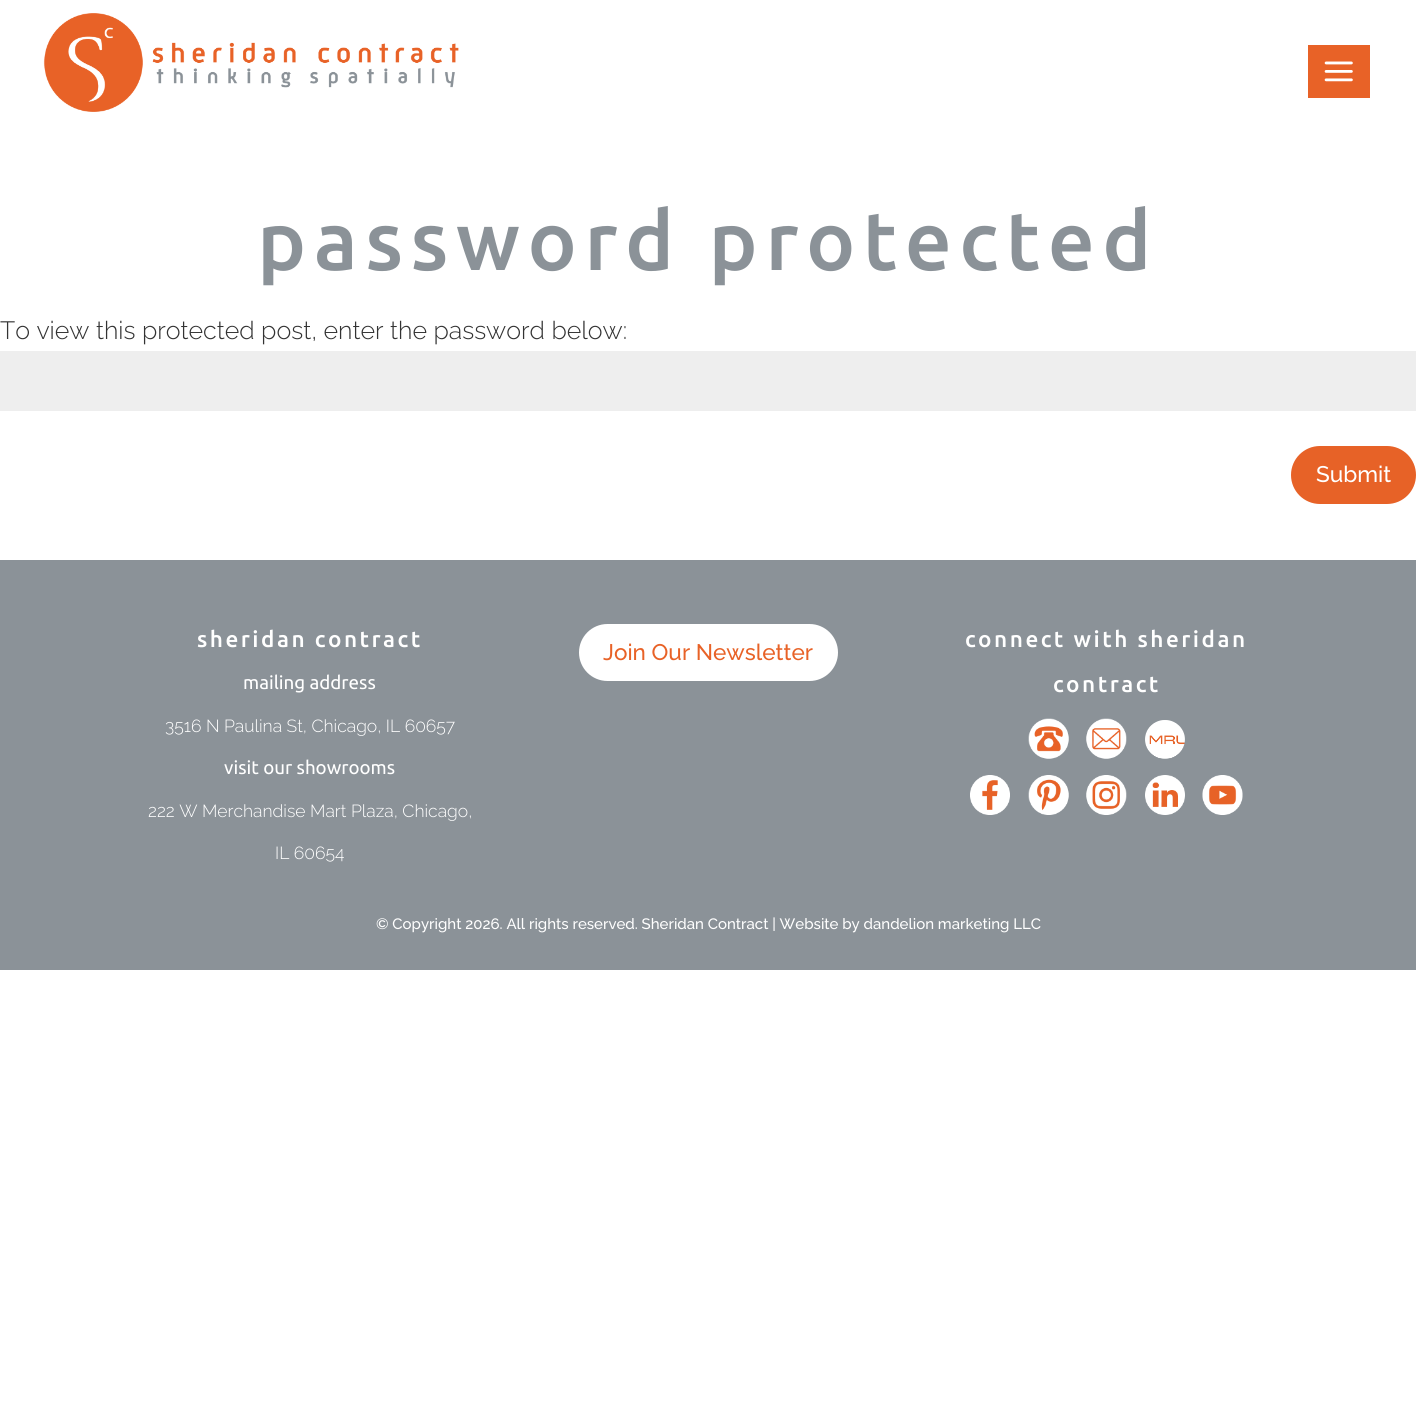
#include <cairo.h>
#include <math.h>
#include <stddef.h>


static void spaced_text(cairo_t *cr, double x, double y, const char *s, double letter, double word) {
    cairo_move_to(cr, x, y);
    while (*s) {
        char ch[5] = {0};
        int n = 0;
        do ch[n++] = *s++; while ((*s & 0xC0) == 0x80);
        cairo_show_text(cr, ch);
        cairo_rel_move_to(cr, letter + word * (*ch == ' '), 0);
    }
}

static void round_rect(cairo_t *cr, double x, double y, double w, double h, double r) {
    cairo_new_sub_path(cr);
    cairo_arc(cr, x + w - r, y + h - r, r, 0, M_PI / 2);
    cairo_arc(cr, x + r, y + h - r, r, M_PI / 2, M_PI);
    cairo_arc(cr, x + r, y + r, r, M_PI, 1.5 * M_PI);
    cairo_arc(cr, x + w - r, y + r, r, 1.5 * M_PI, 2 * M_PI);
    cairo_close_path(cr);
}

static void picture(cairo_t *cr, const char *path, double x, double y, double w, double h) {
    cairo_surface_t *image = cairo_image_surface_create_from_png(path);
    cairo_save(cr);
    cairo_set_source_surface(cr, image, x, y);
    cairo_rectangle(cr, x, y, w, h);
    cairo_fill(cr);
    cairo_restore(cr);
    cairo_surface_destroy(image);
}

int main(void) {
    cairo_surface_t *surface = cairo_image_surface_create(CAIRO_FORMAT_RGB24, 1416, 1404);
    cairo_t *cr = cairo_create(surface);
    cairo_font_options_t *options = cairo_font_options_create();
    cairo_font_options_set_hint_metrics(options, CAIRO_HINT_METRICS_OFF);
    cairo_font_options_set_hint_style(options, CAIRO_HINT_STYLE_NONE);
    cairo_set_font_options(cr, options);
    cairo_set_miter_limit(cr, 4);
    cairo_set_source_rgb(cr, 1, 1, 1);
    cairo_paint(cr);
    picture(cr, "img1.png", 43, 13, 416, 99);
    cairo_set_source_rgb(cr, 0.91, 0.384, 0.153);
    cairo_rectangle(cr, 1308, 45, 62, 53);
    cairo_fill(cr);
    picture(cr, "img2.png", 1324, 61, 29, 21);
    cairo_select_font_face(cr, "Ubuntu Medium", CAIRO_FONT_SLANT_NORMAL, CAIRO_FONT_WEIGHT_NORMAL);
    cairo_set_font_size(cr, 82.5);
    cairo_set_source_rgb(cr, 0.545, 0.573, 0.596);
    spaced_text(cr, 257, 270, "password protected", 7.5, 0);
    cairo_select_font_face(cr, "Raleway Light", CAIRO_FONT_SLANT_NORMAL, CAIRO_FONT_WEIGHT_NORMAL);
    cairo_set_font_size(cr, 25);
    cairo_set_source_rgb(cr, 0.2, 0.2, 0.2);
    cairo_move_to(cr, 0, 339);
    cairo_show_text(cr, "To view this protected post, enter the password below:");
    cairo_set_source_rgb(cr, 0.933, 0.933, 0.933);
    cairo_rectangle(cr, 0, 351, 1416, 60);
    cairo_fill(cr);
    cairo_set_source_rgb(cr, 0.906, 0.384, 0.153);
    round_rect(cr, 1292.5, 447.5, 122, 55, 27.5);
    cairo_fill_preserve(cr);
    cairo_set_line_width(cr, 3);
    cairo_stroke(cr);
    cairo_select_font_face(cr, "Raleway Medium", CAIRO_FONT_SLANT_NORMAL, CAIRO_FONT_WEIGHT_NORMAL);
    cairo_set_font_size(cr, 22.5);
    cairo_set_source_rgb(cr, 1, 1, 1);
    cairo_move_to(cr, 1316, 482);
    cairo_show_text(cr, "Submit");
    cairo_set_source_rgb(cr, 0.545, 0.573, 0.596);
    cairo_rectangle(cr, 0, 560, 1416, 410);
    cairo_fill(cr);
    cairo_select_font_face(cr, "Ubuntu Medium", CAIRO_FONT_SLANT_NORMAL, CAIRO_FONT_WEIGHT_NORMAL);
    cairo_set_source_rgb(cr, 1, 1, 1);
    spaced_text(cr, 197, 647, "sheridan contract", 2.5, 0);
    cairo_select_font_face(cr, "Ubuntu", CAIRO_FONT_SLANT_NORMAL, CAIRO_FONT_WEIGHT_NORMAL);
    cairo_set_font_size(cr, 18.75);
    cairo_move_to(cr, 243, 689);
    cairo_show_text(cr, "mailing address");
    cairo_select_font_face(cr, "Raleway Light", CAIRO_FONT_SLANT_NORMAL, CAIRO_FONT_WEIGHT_NORMAL);
    cairo_set_font_size(cr, 17.5);
    cairo_move_to(cr, 165, 732);
    cairo_show_text(cr, "3516 N Paulina St, Chicago, IL 60657");
    cairo_select_font_face(cr, "Ubuntu", CAIRO_FONT_SLANT_NORMAL, CAIRO_FONT_WEIGHT_NORMAL);
    cairo_set_font_size(cr, 18.75);
    cairo_move_to(cr, 224, 774);
    cairo_show_text(cr, "visit our showrooms");
    cairo_select_font_face(cr, "Raleway Light", CAIRO_FONT_SLANT_NORMAL, CAIRO_FONT_WEIGHT_NORMAL);
    cairo_set_font_size(cr, 17.5);
    cairo_move_to(cr, 148, 817);
    cairo_show_text(cr, "222 W Merchandise Mart Plaza, Chicago,");
    cairo_move_to(cr, 275, 859);
    cairo_show_text(cr, "IL 60654");
    round_rect(cr, 580.5, 625.5, 256, 54, 27);
    cairo_fill_preserve(cr);
    cairo_stroke(cr);
    cairo_select_font_face(cr, "Raleway Medium", CAIRO_FONT_SLANT_NORMAL, CAIRO_FONT_WEIGHT_NORMAL);
    cairo_set_font_size(cr, 22.5);
    cairo_set_source_rgb(cr, 0.91, 0.384, 0.153);
    cairo_move_to(cr, 603, 660);
    cairo_show_text(cr, "Join Our Newsletter");
    cairo_select_font_face(cr, "Ubuntu Medium", CAIRO_FONT_SLANT_NORMAL, CAIRO_FONT_WEIGHT_NORMAL);
    cairo_set_source_rgb(cr, 1, 1, 1);
    spaced_text(cr, 965, 647, "connect with sheridan", 2.5, 0);
    spaced_text(cr, 1053, 692, "contract", 2.5, 0);
    picture(cr, "img3.png", 1028, 718, 41, 41);
    picture(cr, "img4.png", 1086, 718, 41, 41);
    picture(cr, "img5.png", 1145, 720, 40, 39);
    picture(cr, "img6.png", 970, 775, 40, 40);
    picture(cr, "img7.png", 1028, 775, 41, 40);
    picture(cr, "img8.png", 1086, 775, 41, 40);
    picture(cr, "img9.png", 1145, 775, 40, 40);
    picture(cr, "img10.png", 1202, 775, 41, 40);
    cairo_select_font_face(cr, "Raleway Medium", CAIRO_FONT_SLANT_NORMAL, CAIRO_FONT_WEIGHT_NORMAL);
    cairo_set_font_size(cr, 15);
    cairo_move_to(cr, 376, 929);
    cairo_show_text(cr, "© Copyright 2026. All rights reserved. Sheridan Contract | Website by dandelion marketing LLC");
    cairo_surface_write_to_png(surface, "page.png");
    cairo_font_options_destroy(options);
    cairo_destroy(cr);
    cairo_surface_destroy(surface);
    return 0;
}
